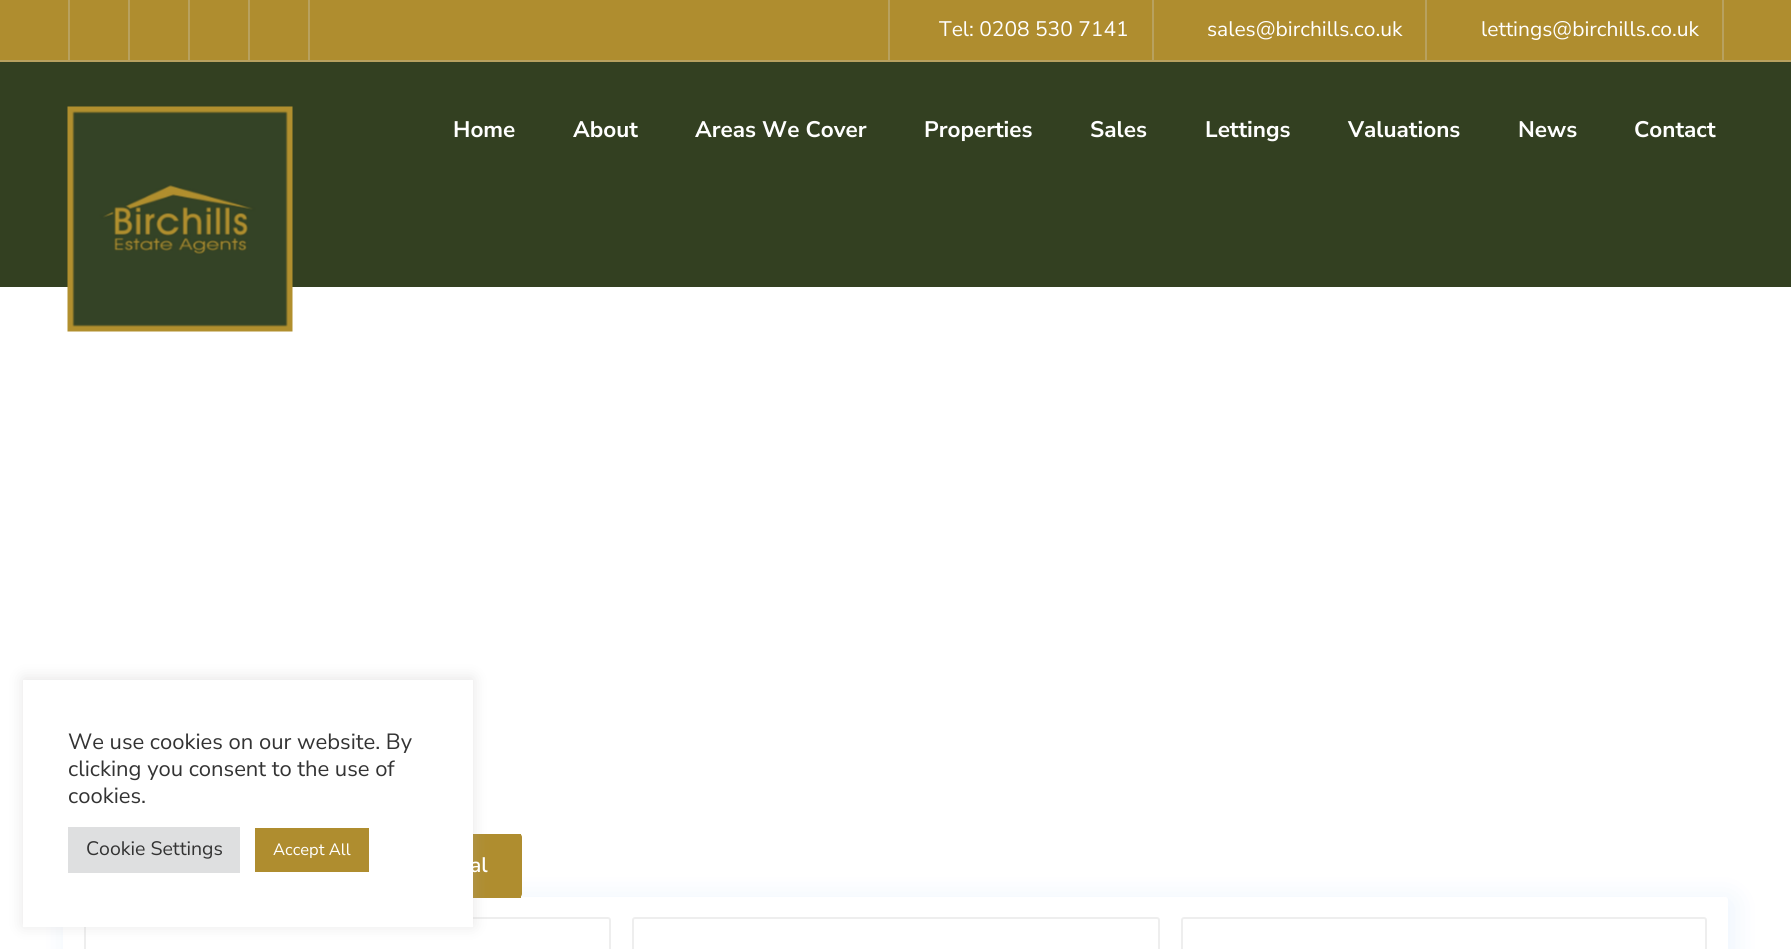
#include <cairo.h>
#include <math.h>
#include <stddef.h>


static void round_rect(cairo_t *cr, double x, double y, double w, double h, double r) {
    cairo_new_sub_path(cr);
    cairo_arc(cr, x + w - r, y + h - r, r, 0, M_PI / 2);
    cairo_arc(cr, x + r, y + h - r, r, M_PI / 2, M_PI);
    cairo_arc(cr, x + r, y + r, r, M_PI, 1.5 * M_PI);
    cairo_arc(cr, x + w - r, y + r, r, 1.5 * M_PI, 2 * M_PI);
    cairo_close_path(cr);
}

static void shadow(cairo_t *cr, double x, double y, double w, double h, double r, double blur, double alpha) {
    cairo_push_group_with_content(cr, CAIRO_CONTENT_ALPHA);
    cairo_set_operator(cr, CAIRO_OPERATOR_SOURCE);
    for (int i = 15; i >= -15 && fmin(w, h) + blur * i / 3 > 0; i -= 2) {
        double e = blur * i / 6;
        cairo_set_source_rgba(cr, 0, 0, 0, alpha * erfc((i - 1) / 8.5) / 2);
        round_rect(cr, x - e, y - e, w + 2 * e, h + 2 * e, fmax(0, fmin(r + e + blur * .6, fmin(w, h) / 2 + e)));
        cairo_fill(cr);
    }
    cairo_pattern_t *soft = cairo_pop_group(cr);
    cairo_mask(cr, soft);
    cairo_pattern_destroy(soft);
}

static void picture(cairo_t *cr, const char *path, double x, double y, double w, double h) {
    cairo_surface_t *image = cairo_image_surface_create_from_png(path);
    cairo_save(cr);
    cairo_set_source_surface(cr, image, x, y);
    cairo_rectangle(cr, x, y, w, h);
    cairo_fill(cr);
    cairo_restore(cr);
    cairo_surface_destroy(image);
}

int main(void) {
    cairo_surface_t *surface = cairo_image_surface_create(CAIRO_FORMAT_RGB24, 1791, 949);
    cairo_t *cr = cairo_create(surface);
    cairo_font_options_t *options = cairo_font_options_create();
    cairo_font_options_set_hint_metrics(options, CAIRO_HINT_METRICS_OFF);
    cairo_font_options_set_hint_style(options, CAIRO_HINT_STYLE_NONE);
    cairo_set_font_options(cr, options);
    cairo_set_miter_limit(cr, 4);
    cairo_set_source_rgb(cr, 1, 1, 1);
    cairo_paint(cr);
    cairo_save(cr);
    cairo_set_fill_rule(cr, CAIRO_FILL_RULE_EVEN_ODD);
    cairo_new_path(cr);
    cairo_move_to(cr, 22, 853);
    cairo_line_to(cr, 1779, 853);
    cairo_line_to(cr, 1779, 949);
    cairo_line_to(cr, 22, 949);
    cairo_close_path(cr);
    cairo_move_to(cr, 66, 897);
    cairo_line_to(cr, 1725, 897);
    cairo_curve_to(cr, 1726.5, 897, 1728, 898.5, 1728, 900);
    cairo_line_to(cr, 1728, 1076);
    cairo_curve_to(cr, 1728, 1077.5, 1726.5, 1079, 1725, 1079);
    cairo_line_to(cr, 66, 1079);
    cairo_curve_to(cr, 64.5, 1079, 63, 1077.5, 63, 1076);
    cairo_line_to(cr, 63, 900);
    cairo_curve_to(cr, 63, 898.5, 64.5, 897, 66, 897);
    cairo_close_path(cr);
    cairo_clip(cr);
    cairo_set_source_rgb(cr, 0, 0.431, 0.882);
    shadow(cr, 68, 899, 1665, 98, 3, 15, 0.08);
    cairo_restore(cr);
    cairo_set_source_rgb(cr, 0.686, 0.553, 0.184);
    round_rect(cr, 338, 834, 184, 63, 3);
    cairo_fill(cr);
    cairo_rectangle(cr, 473, 896, 48, 2);
    cairo_fill(cr);
    round_rect(cr, 85, 918, 525, 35, 2);
    cairo_set_source_rgb(cr, 0.933, 0.933, 0.933);
    cairo_stroke(cr);
    cairo_set_source_rgb(cr, 0.675, 0.671, 0.671);
    shadow(cr, 23, 678, 450, 248, 0, 7.5, 0.3);
    cairo_set_source_rgb(cr, 1, 1, 1);
    cairo_rectangle(cr, 23, 680, 450, 247);
    cairo_fill(cr);
    cairo_select_font_face(cr, "Nunito Sans", CAIRO_FONT_SLANT_NORMAL, CAIRO_FONT_WEIGHT_NORMAL);
    cairo_set_font_size(cr, 22);
    cairo_set_source_rgb(cr, 0.2, 0.2, 0.2);
    cairo_move_to(cr, 68, 749);
    cairo_show_text(cr, "We use cookies on our website. By");
    cairo_move_to(cr, 68, 776);
    cairo_show_text(cr, "clicking you consent to the use of");
    cairo_move_to(cr, 68, 803);
    cairo_show_text(cr, "cookies.");
    cairo_set_source_rgb(cr, 0.871, 0.875, 0.878);
    cairo_rectangle(cr, 68, 827, 172, 46);
    cairo_fill(cr);
    cairo_set_font_size(cr, 19.5);
    cairo_set_source_rgb(cr, 0.2, 0.2, 0.2);
    cairo_move_to(cr, 86, 855);
    cairo_show_text(cr, "Cookie Settings");
    cairo_set_source_rgb(cr, 0.686, 0.553, 0.184);
    cairo_rectangle(cr, 255, 828, 114, 44);
    cairo_fill(cr);
    cairo_set_font_size(cr, 16.5);
    cairo_set_source_rgb(cr, 1, 1, 1);
    cairo_move_to(cr, 273, 855);
    cairo_show_text(cr, "Accept All");
    cairo_set_source_rgb(cr, 0.2, 0.251, 0.129);
    cairo_rectangle(cr, 0, 62, 1791, 225);
    cairo_fill(cr);
    cairo_set_source_rgb(cr, 0.686, 0.553, 0.184);
    cairo_rectangle(cr, 0, 0, 1791, 60);
    cairo_fill(cr);
    cairo_set_source_rgb(cr, 0.722, 0.631, 0.373);
    cairo_rectangle(cr, 0, 60, 1791, 2);
    cairo_fill(cr);
    cairo_rectangle(cr, 68, 0, 2, 60);
    cairo_fill(cr);
    cairo_rectangle(cr, 128, 0, 2, 60);
    cairo_fill(cr);
    cairo_rectangle(cr, 188, 0, 2, 60);
    cairo_fill(cr);
    cairo_rectangle(cr, 248, 0, 2, 60);
    cairo_fill(cr);
    cairo_rectangle(cr, 308, 0, 2, 60);
    cairo_fill(cr);
    cairo_rectangle(cr, 888, 0, 2, 60);
    cairo_fill(cr);
    cairo_set_font_size(cr, 21);
    cairo_set_source_rgb(cr, 1, 1, 1);
    cairo_move_to(cr, 939, 36);
    cairo_show_text(cr, "Tel: 0208 530 7141");
    cairo_set_source_rgb(cr, 0.722, 0.631, 0.373);
    cairo_rectangle(cr, 1152, 0, 2, 60);
    cairo_fill(cr);
    cairo_set_source_rgb(cr, 1, 1, 1);
    cairo_move_to(cr, 1207, 36);
    cairo_show_text(cr, "sales@birchills.co.uk");
    cairo_set_source_rgb(cr, 0.722, 0.631, 0.373);
    cairo_rectangle(cr, 1722, 0, 2, 60);
    cairo_fill(cr);
    cairo_rectangle(cr, 1425, 0, 2, 60);
    cairo_fill(cr);
    cairo_set_source_rgb(cr, 1, 1, 1);
    cairo_move_to(cr, 1481, 36);
    cairo_show_text(cr, "lettings@birchills.co.uk");
    picture(cr, "img1.png", 67, 106, 226, 226);
    cairo_select_font_face(cr, "Nunito Sans", CAIRO_FONT_SLANT_NORMAL, CAIRO_FONT_WEIGHT_BOLD);
    cairo_set_font_size(cr, 22.5);
    cairo_move_to(cr, 453, 137);
    cairo_show_text(cr, "Home");
    cairo_move_to(cr, 573, 137);
    cairo_show_text(cr, "About");
    cairo_move_to(cr, 695, 137);
    cairo_show_text(cr, "Areas We Cover");
    cairo_move_to(cr, 924, 137);
    cairo_show_text(cr, "Properties");
    cairo_move_to(cr, 1090, 137);
    cairo_show_text(cr, "Sales");
    cairo_move_to(cr, 1205, 137);
    cairo_show_text(cr, "Lettings");
    cairo_move_to(cr, 1348, 137);
    cairo_show_text(cr, "Valuations");
    cairo_move_to(cr, 1518, 137);
    cairo_show_text(cr, "News");
    cairo_move_to(cr, 1634, 137);
    cairo_show_text(cr, "Contact");
    cairo_set_source_rgb(cr, 0.686, 0.553, 0.184);
    cairo_rectangle(cr, 519, 834, 2, 1);
    cairo_fill(cr);
    cairo_select_font_face(cr, "Nunito Sans SemiBold", CAIRO_FONT_SLANT_NORMAL, CAIRO_FONT_WEIGHT_NORMAL);
    cairo_set_font_size(cr, 21);
    cairo_set_source_rgb(cr, 1, 1, 1);
    cairo_move_to(cr, 470, 872);
    cairo_show_text(cr, "al");
    round_rect(cr, 633, 918, 526, 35, 2);
    cairo_set_source_rgb(cr, 0.933, 0.933, 0.933);
    cairo_stroke(cr);
    round_rect(cr, 1182, 918, 524, 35, 2);
    cairo_stroke(cr);
    cairo_surface_write_to_png(surface, "page.png");
    cairo_font_options_destroy(options);
    cairo_destroy(cr);
    cairo_surface_destroy(surface);
    return 0;
}
